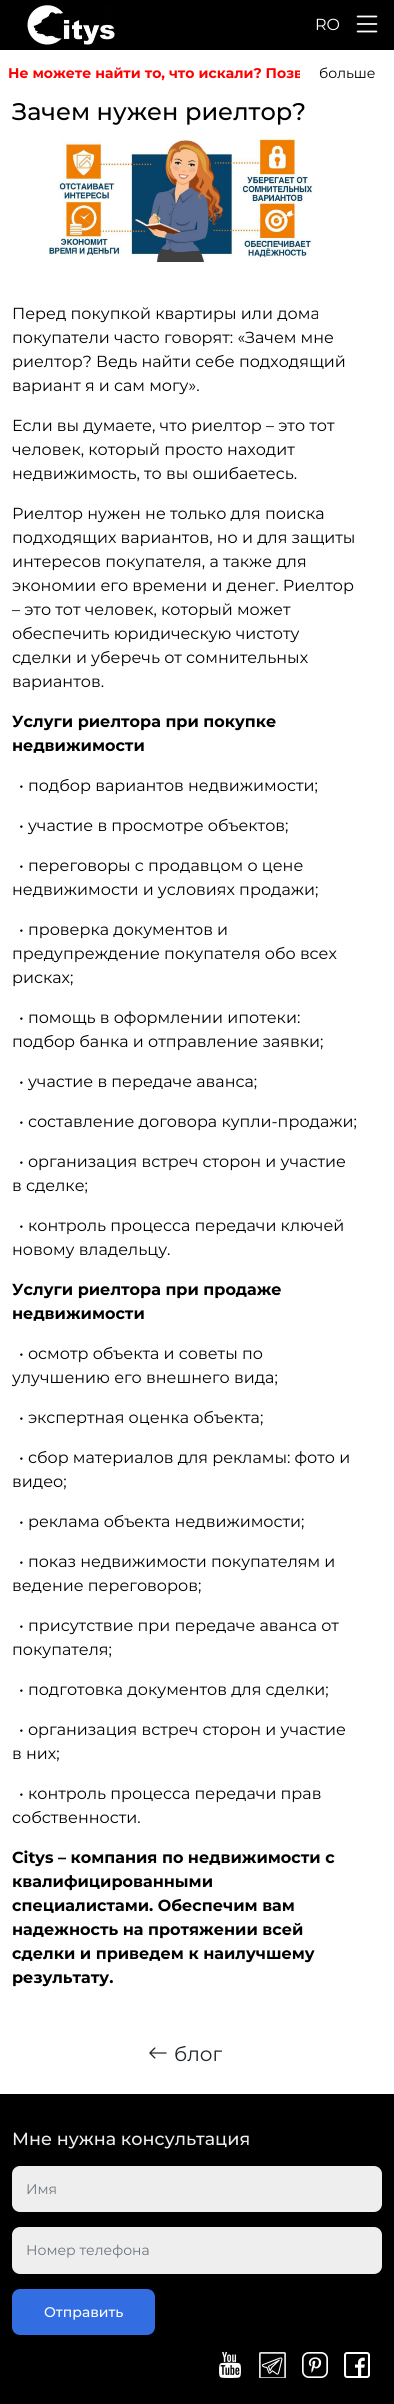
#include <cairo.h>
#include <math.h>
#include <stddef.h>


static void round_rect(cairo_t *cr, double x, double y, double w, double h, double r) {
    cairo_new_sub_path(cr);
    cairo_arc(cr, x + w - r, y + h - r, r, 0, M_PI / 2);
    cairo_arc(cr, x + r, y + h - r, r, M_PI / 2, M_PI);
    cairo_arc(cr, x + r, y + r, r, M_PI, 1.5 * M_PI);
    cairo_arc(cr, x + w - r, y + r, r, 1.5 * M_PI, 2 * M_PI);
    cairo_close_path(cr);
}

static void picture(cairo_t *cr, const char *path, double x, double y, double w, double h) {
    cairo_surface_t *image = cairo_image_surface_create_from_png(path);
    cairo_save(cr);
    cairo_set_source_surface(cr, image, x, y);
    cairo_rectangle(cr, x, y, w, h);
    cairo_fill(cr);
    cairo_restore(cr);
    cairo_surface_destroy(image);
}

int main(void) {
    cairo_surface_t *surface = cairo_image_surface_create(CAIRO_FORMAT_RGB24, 394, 2404);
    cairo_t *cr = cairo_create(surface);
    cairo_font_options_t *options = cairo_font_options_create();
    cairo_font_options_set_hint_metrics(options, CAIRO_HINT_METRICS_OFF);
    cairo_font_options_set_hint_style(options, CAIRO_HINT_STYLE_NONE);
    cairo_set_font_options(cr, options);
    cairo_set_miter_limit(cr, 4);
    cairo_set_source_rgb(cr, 1, 1, 1);
    cairo_paint(cr);
    cairo_set_source_rgb(cr, 0, 0, 0);
    cairo_rectangle(cr, 0, 0, 394, 50);
    cairo_fill(cr);
    picture(cr, "img1.png", 27, 5, 88, 40);
    cairo_select_font_face(cr, "Montserrat", CAIRO_FONT_SLANT_NORMAL, CAIRO_FONT_WEIGHT_NORMAL);
    cairo_set_font_size(cr, 16);
    cairo_set_source_rgb(cr, 1, 1, 1);
    cairo_move_to(cr, 315, 30);
    cairo_show_text(cr, "RO");
    picture(cr, "img2.png", 356, 15, 22, 18);
    cairo_select_font_face(cr, "Montserrat", CAIRO_FONT_SLANT_NORMAL, CAIRO_FONT_WEIGHT_BOLD);
    cairo_set_font_size(cr, 14);
    cairo_set_source_rgb(cr, 1, 0, 0);
    cairo_move_to(cr, 8, 78);
    cairo_show_text(cr, "Не можете найти то, что искали? Позв");
    cairo_save(cr);
    round_rect(cr, 0, 58, 394, 30, 4);
    cairo_clip(cr);
    cairo_set_source_rgb(cr, 1, 1, 1);
    round_rect(cr, 300, 57, 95, 32, 4);
    cairo_fill(cr);
    cairo_restore(cr);
    cairo_select_font_face(cr, "Montserrat", CAIRO_FONT_SLANT_NORMAL, CAIRO_FONT_WEIGHT_NORMAL);
    cairo_set_source_rgb(cr, 0, 0, 0);
    cairo_move_to(cr, 319, 78);
    cairo_show_text(cr, "больше");
    cairo_select_font_face(cr, "Montserrat Medium", CAIRO_FONT_SLANT_NORMAL, CAIRO_FONT_WEIGHT_NORMAL);
    cairo_set_font_size(cr, 24);
    cairo_move_to(cr, 12, 120);
    cairo_show_text(cr, "Зачем нужен риелтор?");
    picture(cr, "img3.png", 49, 135, 265, 127);
    cairo_select_font_face(cr, "Montserrat", CAIRO_FONT_SLANT_NORMAL, CAIRO_FONT_WEIGHT_NORMAL);
    cairo_set_font_size(cr, 16);
    cairo_move_to(cr, 12, 319);
    cairo_show_text(cr, "Перед покупкой квартиры или дома");
    cairo_move_to(cr, 12, 343);
    cairo_show_text(cr, "покупатели часто говорят: «Зачем мне");
    cairo_move_to(cr, 12, 367);
    cairo_show_text(cr, "риелтор? Ведь найти себе подходящий");
    cairo_move_to(cr, 12, 391);
    cairo_show_text(cr, "вариант я и сам могу».");
    cairo_move_to(cr, 12, 431);
    cairo_show_text(cr, "Если вы думаете, что риелтор – это тот");
    cairo_move_to(cr, 12, 455);
    cairo_show_text(cr, "человек, который просто находит");
    cairo_move_to(cr, 12, 479);
    cairo_show_text(cr, "недвижимость, то вы ошибаетесь.");
    cairo_move_to(cr, 12, 519);
    cairo_show_text(cr, "Риелтор нужен не только для поиска");
    cairo_move_to(cr, 12, 543);
    cairo_show_text(cr, "подходящих вариантов, но и для защиты");
    cairo_move_to(cr, 12, 567);
    cairo_show_text(cr, "интересов покупателя, а также для");
    cairo_move_to(cr, 12, 591);
    cairo_show_text(cr, "экономии его времени и денег. Риелтор");
    cairo_move_to(cr, 12, 615);
    cairo_show_text(cr, "– это тот человек, который может");
    cairo_move_to(cr, 12, 639);
    cairo_show_text(cr, "обеспечить юридическую чистоту");
    cairo_move_to(cr, 12, 663);
    cairo_show_text(cr, "сделки и уберечь от сомнительных");
    cairo_move_to(cr, 12, 687);
    cairo_show_text(cr, "вариантов.");
    cairo_select_font_face(cr, "Montserrat", CAIRO_FONT_SLANT_NORMAL, CAIRO_FONT_WEIGHT_BOLD);
    cairo_move_to(cr, 12, 727);
    cairo_show_text(cr, "Услуги риелтора при покупке");
    cairo_move_to(cr, 12, 751);
    cairo_show_text(cr, "недвижимости");
    cairo_select_font_face(cr, "Montserrat", CAIRO_FONT_SLANT_NORMAL, CAIRO_FONT_WEIGHT_NORMAL);
    cairo_move_to(cr, 19, 791);
    cairo_show_text(cr, "• подбор вариантов недвижимости;");
    cairo_move_to(cr, 19, 831);
    cairo_show_text(cr, "• участие в просмотре объектов;");
    cairo_move_to(cr, 19, 871);
    cairo_show_text(cr, "• переговоры с продавцом о цене");
    cairo_move_to(cr, 12, 895);
    cairo_show_text(cr, "недвижимости и условиях продажи;");
    cairo_move_to(cr, 19, 935);
    cairo_show_text(cr, "• проверка документов и");
    cairo_move_to(cr, 12, 959);
    cairo_show_text(cr, "предупреждение покупателя обо всех");
    cairo_move_to(cr, 12, 983);
    cairo_show_text(cr, "рисках;");
    cairo_move_to(cr, 19, 1023);
    cairo_show_text(cr, "• помощь в оформлении ипотеки:");
    cairo_move_to(cr, 12, 1047);
    cairo_show_text(cr, "подбор банка и отправление заявки;");
    cairo_move_to(cr, 19, 1087);
    cairo_show_text(cr, "• участие в передаче аванса;");
    cairo_move_to(cr, 19, 1127);
    cairo_show_text(cr, "• составление договора купли-продажи;");
    cairo_move_to(cr, 19, 1167);
    cairo_show_text(cr, "• организация встреч сторон и участие");
    cairo_move_to(cr, 12, 1191);
    cairo_show_text(cr, "в сделке;");
    cairo_move_to(cr, 19, 1231);
    cairo_show_text(cr, "• контроль процесса передачи ключей");
    cairo_move_to(cr, 12, 1255);
    cairo_show_text(cr, "новому владельцу.");
    cairo_select_font_face(cr, "Montserrat", CAIRO_FONT_SLANT_NORMAL, CAIRO_FONT_WEIGHT_BOLD);
    cairo_move_to(cr, 12, 1295);
    cairo_show_text(cr, "Услуги риелтора при продаже");
    cairo_move_to(cr, 12, 1319);
    cairo_show_text(cr, "недвижимости");
    cairo_select_font_face(cr, "Montserrat", CAIRO_FONT_SLANT_NORMAL, CAIRO_FONT_WEIGHT_NORMAL);
    cairo_move_to(cr, 19, 1359);
    cairo_show_text(cr, "• осмотр объекта и советы по");
    cairo_move_to(cr, 12, 1383);
    cairo_show_text(cr, "улучшению его внешнего вида;");
    cairo_move_to(cr, 19, 1423);
    cairo_show_text(cr, "• экспертная оценка объекта;");
    cairo_move_to(cr, 19, 1463);
    cairo_show_text(cr, "• сбор материалов для рекламы: фото и");
    cairo_move_to(cr, 12, 1487);
    cairo_show_text(cr, "видео;");
    cairo_move_to(cr, 19, 1527);
    cairo_show_text(cr, "• реклама объекта недвижимости;");
    cairo_move_to(cr, 19, 1567);
    cairo_show_text(cr, "• показ недвижимости покупателям и");
    cairo_move_to(cr, 12, 1591);
    cairo_show_text(cr, "ведение переговоров;");
    cairo_move_to(cr, 19, 1631);
    cairo_show_text(cr, "• присутствие при передаче аванса от");
    cairo_move_to(cr, 12, 1655);
    cairo_show_text(cr, "покупателя;");
    cairo_move_to(cr, 19, 1695);
    cairo_show_text(cr, "• подготовка документов для сделки;");
    cairo_move_to(cr, 19, 1735);
    cairo_show_text(cr, "• организация встреч сторон и участие");
    cairo_move_to(cr, 12, 1759);
    cairo_show_text(cr, "в них;");
    cairo_move_to(cr, 19, 1799);
    cairo_show_text(cr, "• контроль процесса передачи прав");
    cairo_move_to(cr, 12, 1823);
    cairo_show_text(cr, "собственности.");
    cairo_select_font_face(cr, "Montserrat", CAIRO_FONT_SLANT_NORMAL, CAIRO_FONT_WEIGHT_BOLD);
    cairo_move_to(cr, 12, 1863);
    cairo_show_text(cr, "Citys – компания по недвижимости с");
    cairo_move_to(cr, 12, 1887);
    cairo_show_text(cr, "квалифицированными");
    cairo_move_to(cr, 12, 1911);
    cairo_show_text(cr, "специалистами. Обеспечим вам");
    cairo_move_to(cr, 12, 1935);
    cairo_show_text(cr, "надежность на протяжении всей");
    cairo_move_to(cr, 12, 1959);
    cairo_show_text(cr, "сделки и приведем к наилучшему");
    cairo_move_to(cr, 12, 1983);
    cairo_show_text(cr, "результату.");
    picture(cr, "img4.png", 149, 2047, 18, 12);
    cairo_select_font_face(cr, "Montserrat", CAIRO_FONT_SLANT_NORMAL, CAIRO_FONT_WEIGHT_NORMAL);
    cairo_set_font_size(cr, 20);
    cairo_set_source_rgb(cr, 0.129, 0.145, 0.161);
    cairo_move_to(cr, 174, 2061);
    cairo_show_text(cr, "блог");
    cairo_set_source_rgb(cr, 0, 0, 0);
    cairo_rectangle(cr, 0, 2094, 394, 310);
    cairo_fill(cr);
    cairo_select_font_face(cr, "Montserrat Medium", CAIRO_FONT_SLANT_NORMAL, CAIRO_FONT_WEIGHT_NORMAL);
    cairo_set_font_size(cr, 17.6);
    cairo_set_source_rgb(cr, 0.933, 0.933, 0.933);
    cairo_move_to(cr, 12, 2145);
    cairo_show_text(cr, "Мне нужна консультация");
    round_rect(cr, 12, 2166, 370, 46, 8);
    cairo_fill(cr);
    cairo_select_font_face(cr, "Montserrat", CAIRO_FONT_SLANT_NORMAL, CAIRO_FONT_WEIGHT_NORMAL);
    cairo_set_font_size(cr, 14);
    cairo_set_source_rgb(cr, 0.424, 0.459, 0.49);
    cairo_move_to(cr, 26, 2194);
    cairo_show_text(cr, "Имя");
    cairo_set_source_rgb(cr, 0.933, 0.933, 0.933);
    round_rect(cr, 12, 2227, 370, 47, 8);
    cairo_fill(cr);
    cairo_set_source_rgb(cr, 0.424, 0.459, 0.49);
    cairo_move_to(cr, 26, 2255);
    cairo_show_text(cr, "Номер телефона");
    cairo_set_source_rgb(cr, 0.196, 0.427, 0.886);
    round_rect(cr, 12, 2289, 143, 46, 8);
    cairo_fill(cr);
    cairo_select_font_face(cr, "Montserrat Medium", CAIRO_FONT_SLANT_NORMAL, CAIRO_FONT_WEIGHT_NORMAL);
    cairo_set_source_rgb(cr, 1, 1, 1);
    cairo_move_to(cr, 44, 2317);
    cairo_show_text(cr, "Отправить");
    picture(cr, "img5.png", 219, 2352, 22, 26);
    picture(cr, "img6.png", 259, 2352, 27, 26);
    picture(cr, "img7.png", 302, 2352, 26, 26);
    picture(cr, "img8.png", 344, 2352, 26, 26);
    cairo_surface_write_to_png(surface, "page.png");
    cairo_font_options_destroy(options);
    cairo_destroy(cr);
    cairo_surface_destroy(surface);
    return 0;
}
